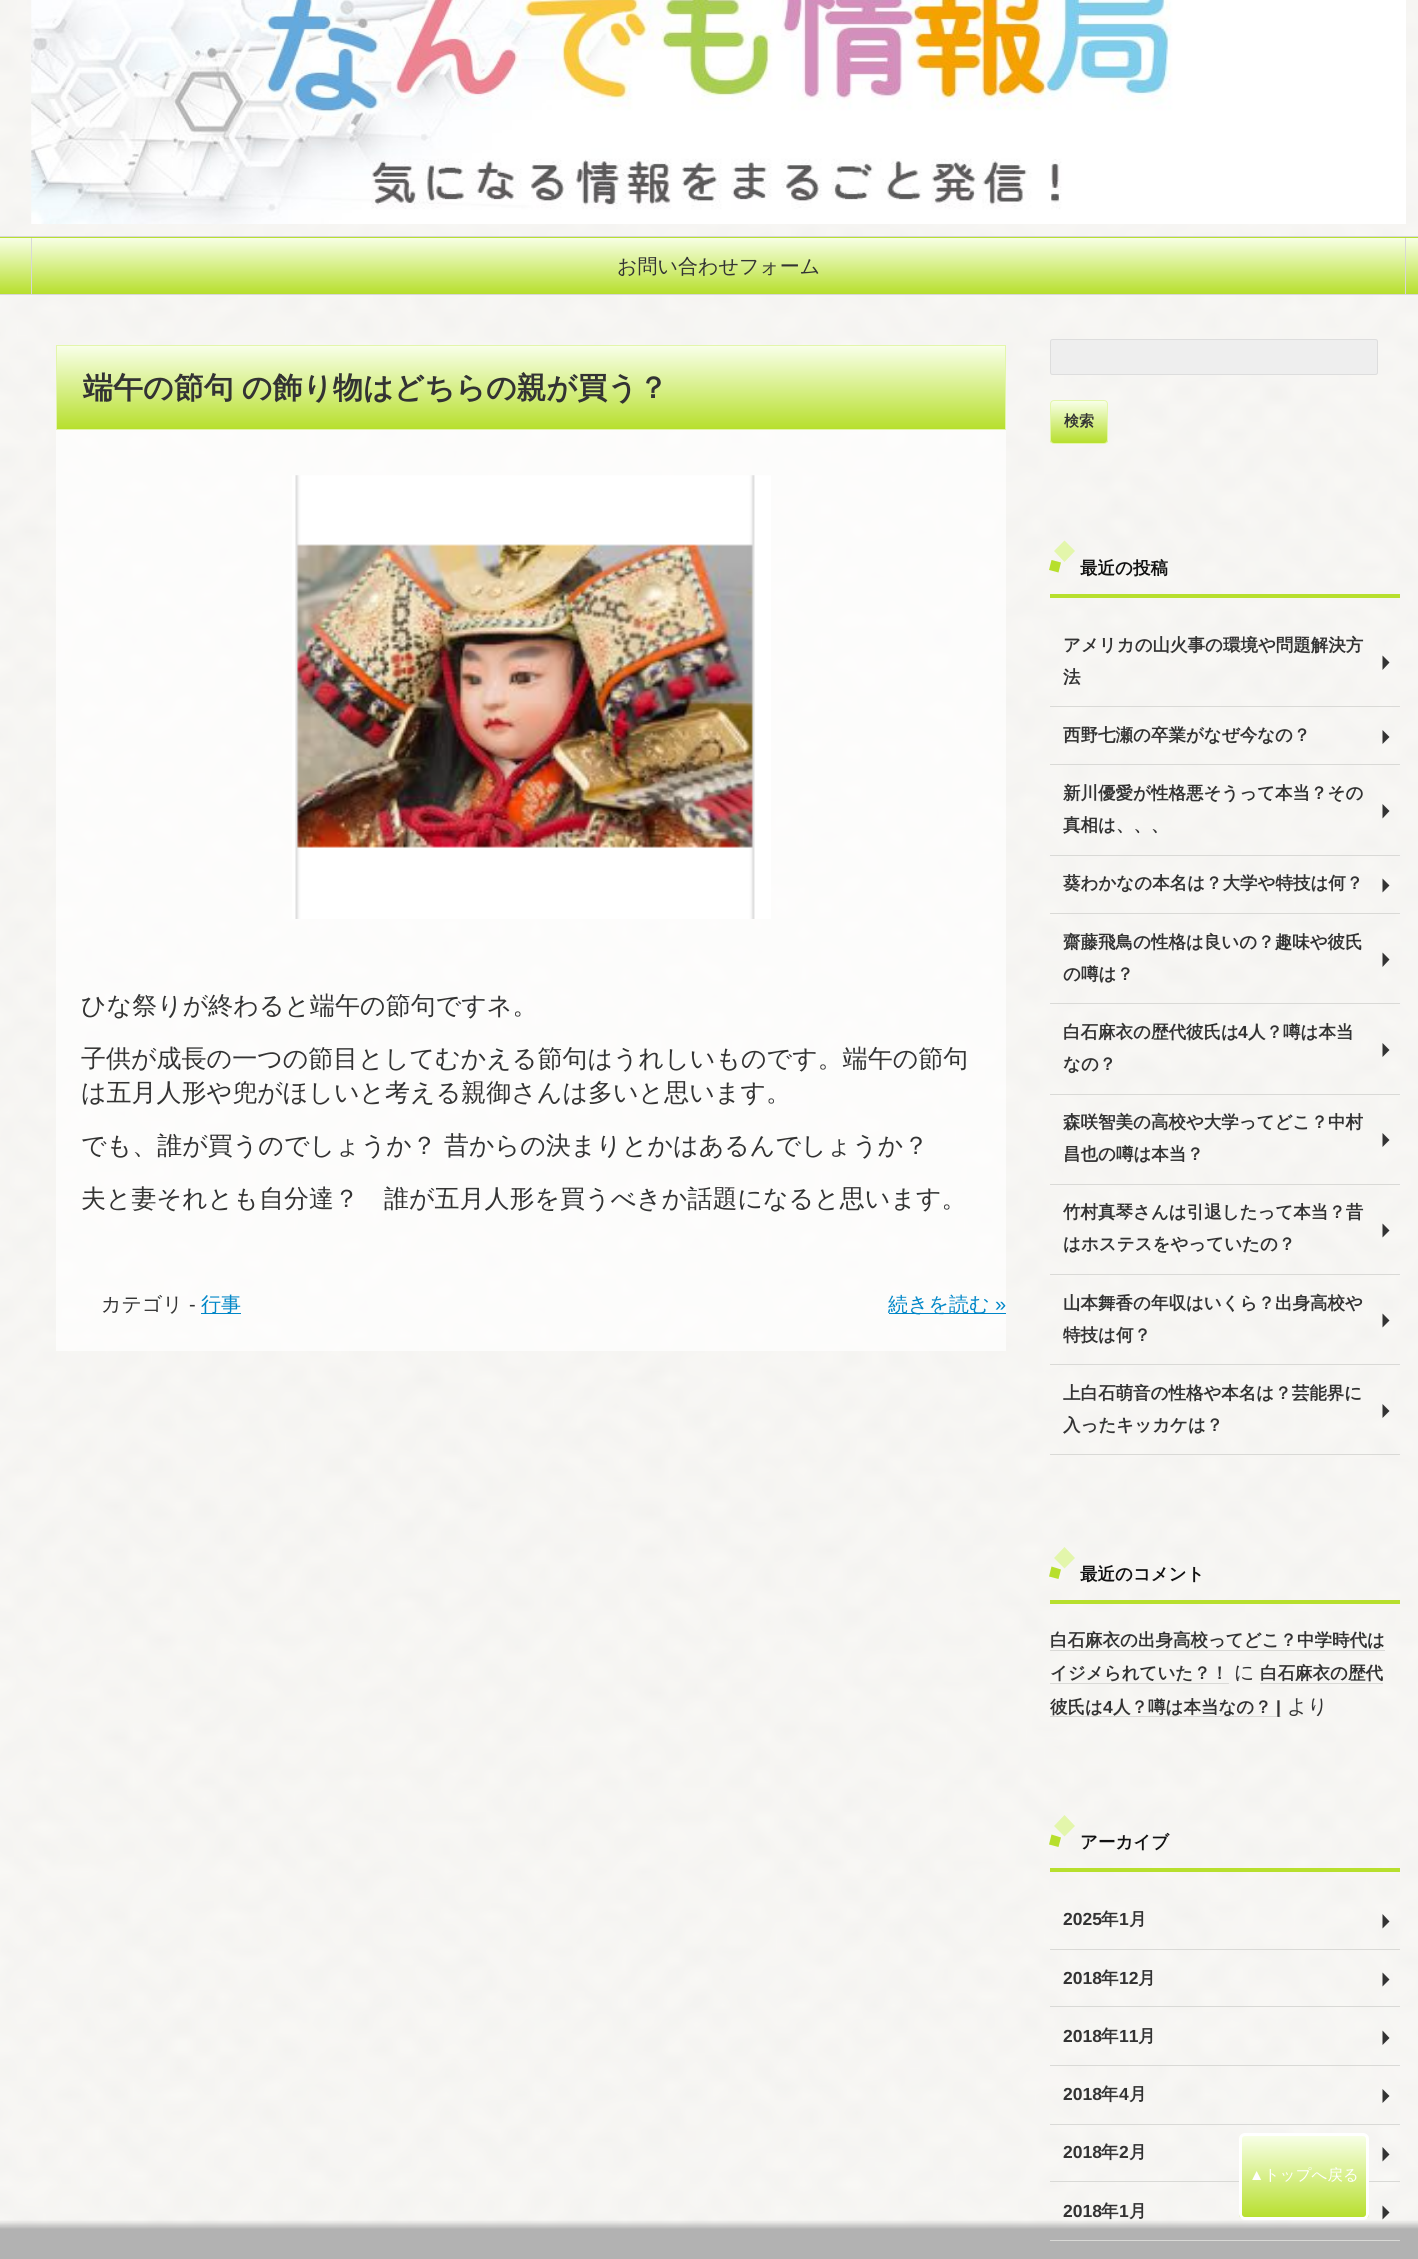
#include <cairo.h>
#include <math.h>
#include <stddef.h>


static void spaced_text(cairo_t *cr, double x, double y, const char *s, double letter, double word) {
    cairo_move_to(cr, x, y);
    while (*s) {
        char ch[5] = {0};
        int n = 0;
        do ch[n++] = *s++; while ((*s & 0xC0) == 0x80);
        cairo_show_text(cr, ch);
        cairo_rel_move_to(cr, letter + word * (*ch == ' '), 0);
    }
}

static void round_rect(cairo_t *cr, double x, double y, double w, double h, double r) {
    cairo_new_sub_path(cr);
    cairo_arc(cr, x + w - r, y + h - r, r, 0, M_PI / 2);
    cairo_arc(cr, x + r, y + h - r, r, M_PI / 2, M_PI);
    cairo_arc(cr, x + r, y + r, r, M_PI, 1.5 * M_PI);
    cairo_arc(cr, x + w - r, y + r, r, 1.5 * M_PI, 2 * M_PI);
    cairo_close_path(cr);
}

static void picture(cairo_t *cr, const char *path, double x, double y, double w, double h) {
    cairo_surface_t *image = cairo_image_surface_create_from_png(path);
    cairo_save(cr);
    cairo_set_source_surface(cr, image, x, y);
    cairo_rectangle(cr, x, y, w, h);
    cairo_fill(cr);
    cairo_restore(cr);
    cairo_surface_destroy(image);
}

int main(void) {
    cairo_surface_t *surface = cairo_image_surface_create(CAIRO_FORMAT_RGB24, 1418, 2259);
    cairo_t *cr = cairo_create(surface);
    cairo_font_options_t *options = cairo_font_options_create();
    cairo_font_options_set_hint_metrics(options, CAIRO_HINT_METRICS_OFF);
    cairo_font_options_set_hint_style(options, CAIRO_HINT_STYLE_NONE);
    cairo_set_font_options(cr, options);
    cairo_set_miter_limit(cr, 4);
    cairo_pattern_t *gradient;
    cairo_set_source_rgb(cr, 1, 1, 1);
    cairo_paint(cr);
    picture(cr, "img1.png", 0, 0, 1418, 2259);
    picture(cr, "img2.png", 31, 0, 1375, 224);
    gradient = cairo_pattern_create_linear(719, 181, 719, 238);
    cairo_pattern_add_color_stop_rgba(gradient, 0, 0.973, 1, 0.91, 1);
    cairo_pattern_add_color_stop_rgba(gradient, 0.33, 0.89, 0.961, 0.671, 1);
    cairo_pattern_add_color_stop_rgba(gradient, 1, 0.718, 0.875, 0.176, 1);
    cairo_set_source(cr, gradient);
    cairo_pattern_destroy(gradient);
    cairo_rectangle(cr, 0, 237, 1418, 1);
    cairo_fill(cr);
    gradient = cairo_pattern_create_linear(719, 237, 719, 294);
    cairo_pattern_add_color_stop_rgba(gradient, 0, 0.973, 1, 0.91, 1);
    cairo_pattern_add_color_stop_rgba(gradient, 0.33, 0.89, 0.961, 0.671, 1);
    cairo_pattern_add_color_stop_rgba(gradient, 1, 0.718, 0.875, 0.176, 1);
    cairo_set_source(cr, gradient);
    cairo_pattern_destroy(gradient);
    cairo_rectangle(cr, 0, 238, 1418, 56);
    cairo_fill(cr);
    cairo_set_source_rgb(cr, 0.847, 0.847, 0.847);
    cairo_rectangle(cr, 0, 236, 1418, 1);
    cairo_fill(cr);
    cairo_rectangle(cr, 0, 294, 1418, 1);
    cairo_fill(cr);
    cairo_rectangle(cr, 1405, 238, 1, 56);
    cairo_fill(cr);
    cairo_rectangle(cr, 31, 238, 1, 56);
    cairo_fill(cr);
    cairo_select_font_face(cr, "WenQuanYi Zen Hei Medium", CAIRO_FONT_SLANT_NORMAL, CAIRO_FONT_WEIGHT_NORMAL);
    cairo_set_font_size(cr, 20);
    cairo_set_source_rgb(cr, 0.2, 0.2, 0.2);
    cairo_move_to(cr, 617, 273);
    cairo_show_text(cr, "お問い合わせフォーム");
    cairo_set_source_rgba(cr, 1, 1, 1, 0.7);
    cairo_rectangle(cr, 56, 430, 950, 921);
    cairo_fill(cr);
    gradient = cairo_pattern_create_linear(531, 346, 531, 429);
    cairo_pattern_add_color_stop_rgba(gradient, 0, 0.973, 1, 0.91, 1);
    cairo_pattern_add_color_stop_rgba(gradient, 0.33, 0.89, 0.961, 0.671, 1);
    cairo_pattern_add_color_stop_rgba(gradient, 1, 0.718, 0.875, 0.176, 1);
    cairo_set_source(cr, gradient);
    cairo_pattern_destroy(gradient);
    cairo_rectangle(cr, 57, 346, 948, 83);
    cairo_fill(cr);
    cairo_rectangle(cr, 56.5, 345.5, 949, 84);
    cairo_set_source_rgb(cr, 0.89, 0.961, 0.671);
    cairo_set_line_width(cr, 1);
    cairo_stroke(cr);
    cairo_select_font_face(cr, "WenQuanYi Zen Hei", CAIRO_FONT_SLANT_NORMAL, CAIRO_FONT_WEIGHT_BOLD);
    cairo_set_font_size(cr, 30);
    cairo_set_source_rgb(cr, 0.2, 0.2, 0.2);
    spaced_text(cr, 83, 398, "端午の節句 の飾り物はどちらの親が買う？", 0, -1);
    picture(cr, "img3.png", 292, 475, 479, 444);
    cairo_select_font_face(cr, "WenQuanYi Zen Hei Medium", CAIRO_FONT_SLANT_NORMAL, CAIRO_FONT_WEIGHT_NORMAL);
    cairo_set_font_size(cr, 25);
    cairo_move_to(cr, 81, 1014);
    cairo_show_text(cr, "ひな祭りが終わると端午の節句ですネ。");
    cairo_move_to(cr, 81, 1067);
    cairo_show_text(cr, "子供が成長の一つの節目としてむかえる節句はうれしいものです。端午の節句");
    cairo_move_to(cr, 81, 1101);
    cairo_show_text(cr, "は五月人形や兜がほしいと考える親御さんは多いと思います。");
    cairo_move_to(cr, 81, 1154);
    cairo_show_text(cr, "でも、誰が買うのでしょうか？");
    cairo_move_to(cr, 444, 1154);
    cairo_show_text(cr, "昔からの決まりとかはあるんでしょうか？");
    cairo_move_to(cr, 81, 1207);
    cairo_show_text(cr, "夫と妻それとも自分達？　誰が五月人形を買うべきか話題になると思います。");
    cairo_set_font_size(cr, 20);
    cairo_move_to(cr, 101, 1311);
    cairo_show_text(cr, "カテゴリ");
    cairo_select_font_face(cr, "Liberation Sans", CAIRO_FONT_SLANT_NORMAL, CAIRO_FONT_WEIGHT_NORMAL);
    cairo_move_to(cr, 189, 1311);
    cairo_show_text(cr, "-");
    cairo_set_source_rgb(cr, 0, 0.525, 0.78);
    cairo_rectangle(cr, 201, 1313, 40, 1);
    cairo_fill(cr);
    cairo_select_font_face(cr, "WenQuanYi Zen Hei Medium", CAIRO_FONT_SLANT_NORMAL, CAIRO_FONT_WEIGHT_NORMAL);
    cairo_move_to(cr, 201, 1311);
    cairo_show_text(cr, "行事");
    cairo_rectangle(cr, 889, 1313, 117, 1);
    cairo_fill(cr);
    cairo_move_to(cr, 888, 1311);
    cairo_show_text(cr, "続きを読む");
    cairo_select_font_face(cr, "Liberation Sans", CAIRO_FONT_SLANT_NORMAL, CAIRO_FONT_WEIGHT_NORMAL);
    cairo_move_to(cr, 995, 1311);
    cairo_show_text(cr, "»");
    cairo_set_source_rgb(cr, 0.933, 0.933, 0.933);
    round_rect(cr, 1050.5, 339.5, 327, 35, 2);
    cairo_fill_preserve(cr);
    cairo_set_source_rgb(cr, 0.867, 0.867, 0.867);
    cairo_stroke(cr);
    cairo_save(cr);
    round_rect(cr, 1050, 400, 58, 44, 4);
    cairo_clip(cr);
    gradient = cairo_pattern_create_linear(1079, 401, 1079, 443);
    cairo_pattern_add_color_stop_rgba(gradient, 0, 0.973, 1, 0.91, 1);
    cairo_pattern_add_color_stop_rgba(gradient, 0.33, 0.89, 0.961, 0.671, 1);
    cairo_pattern_add_color_stop_rgba(gradient, 1, 0.718, 0.875, 0.176, 1);
    cairo_set_source(cr, gradient);
    cairo_pattern_destroy(gradient);
    cairo_rectangle(cr, 1050, 401, 58, 42);
    cairo_fill(cr);
    cairo_restore(cr);
    round_rect(cr, 1050.5, 400.5, 57, 43, 3.5);
    cairo_set_source_rgb(cr, 0.89, 0.961, 0.671);
    cairo_stroke(cr);
    cairo_select_font_face(cr, "WenQuanYi Zen Hei", CAIRO_FONT_SLANT_NORMAL, CAIRO_FONT_WEIGHT_BOLD);
    cairo_set_font_size(cr, 15);
    cairo_set_source_rgb(cr, 0.2, 0.2, 0.2);
    cairo_move_to(cr, 1064, 426);
    cairo_show_text(cr, "検索");
    cairo_set_source_rgb(cr, 0.718, 0.875, 0.176);
    cairo_rectangle(cr, 1050, 594, 350, 4);
    cairo_fill(cr);
    cairo_set_source_rgb(cr, 0.89, 0.961, 0.671);
    cairo_new_path(cr);
    cairo_move_to(cr, 1064.5, 540.5);
    cairo_line_to(cr, 1075, 551);
    cairo_line_to(cr, 1064.5, 562);
    cairo_line_to(cr, 1054, 551);
    cairo_close_path(cr);
    cairo_fill(cr);
    cairo_set_source_rgb(cr, 0.718, 0.875, 0.176);
    cairo_new_path(cr);
    cairo_move_to(cr, 1051.5, 560);
    cairo_line_to(cr, 1061, 562.5);
    cairo_line_to(cr, 1058.5, 572.5);
    cairo_line_to(cr, 1049, 570);
    cairo_close_path(cr);
    cairo_fill(cr);
    cairo_set_font_size(cr, 17.5);
    cairo_set_source_rgb(cr, 0.067, 0.067, 0.067);
    cairo_move_to(cr, 1080, 574);
    cairo_show_text(cr, "最近の投稿");
    cairo_set_source_rgb(cr, 0.851, 0.851, 0.839);
    cairo_rectangle(cr, 1050, 706, 350, 1);
    cairo_fill(cr);
    cairo_set_source_rgb(cr, 0.2, 0.2, 0.2);
    cairo_move_to(cr, 1063, 651);
    cairo_show_text(cr, "アメリカの山火事の環境や問題解決方");
    cairo_new_path(cr);
    cairo_move_to(cr, 1382.5, 655.5);
    cairo_line_to(cr, 1389.5, 662.5);
    cairo_line_to(cr, 1382.5, 670);
    cairo_close_path(cr);
    cairo_fill(cr);
    cairo_move_to(cr, 1063, 683);
    cairo_show_text(cr, "法");
    cairo_set_source_rgb(cr, 0.851, 0.851, 0.839);
    cairo_rectangle(cr, 1050, 764, 350, 1);
    cairo_fill(cr);
    cairo_set_source_rgb(cr, 0.2, 0.2, 0.2);
    cairo_move_to(cr, 1063, 741);
    cairo_show_text(cr, "西野七瀬の卒業がなぜ今なの？");
    cairo_new_path(cr);
    cairo_move_to(cr, 1382.5, 730);
    cairo_line_to(cr, 1389.5, 737);
    cairo_line_to(cr, 1382.5, 744);
    cairo_close_path(cr);
    cairo_fill(cr);
    cairo_set_source_rgb(cr, 0.851, 0.851, 0.839);
    cairo_rectangle(cr, 1050, 855, 350, 1);
    cairo_fill(cr);
    cairo_set_source_rgb(cr, 0.2, 0.2, 0.2);
    cairo_move_to(cr, 1063, 799);
    cairo_show_text(cr, "新川優愛が性格悪そうって本当？その");
    cairo_new_path(cr);
    cairo_move_to(cr, 1382.5, 804);
    cairo_line_to(cr, 1389.5, 811);
    cairo_line_to(cr, 1382.5, 818.5);
    cairo_close_path(cr);
    cairo_fill(cr);
    cairo_move_to(cr, 1063, 831);
    cairo_show_text(cr, "真相は、、、");
    cairo_set_source_rgb(cr, 0.851, 0.851, 0.839);
    cairo_rectangle(cr, 1050, 913, 350, 1);
    cairo_fill(cr);
    cairo_set_source_rgb(cr, 0.2, 0.2, 0.2);
    cairo_move_to(cr, 1063, 889);
    cairo_show_text(cr, "葵わかなの本名は？大学や特技は何？");
    cairo_new_path(cr);
    cairo_move_to(cr, 1382.5, 878.5);
    cairo_line_to(cr, 1389.5, 885.5);
    cairo_line_to(cr, 1382.5, 892.5);
    cairo_close_path(cr);
    cairo_fill(cr);
    cairo_set_source_rgb(cr, 0.851, 0.851, 0.839);
    cairo_rectangle(cr, 1050, 1003, 350, 1);
    cairo_fill(cr);
    cairo_set_source_rgb(cr, 0.2, 0.2, 0.2);
    cairo_move_to(cr, 1063, 948);
    cairo_show_text(cr, "齋藤飛鳥の性格は良いの？趣味や彼氏");
    cairo_new_path(cr);
    cairo_move_to(cr, 1382.5, 952.5);
    cairo_line_to(cr, 1389.5, 959.5);
    cairo_line_to(cr, 1382.5, 967);
    cairo_close_path(cr);
    cairo_fill(cr);
    cairo_move_to(cr, 1063, 980);
    cairo_show_text(cr, "の噂は？");
    cairo_set_source_rgb(cr, 0.851, 0.851, 0.839);
    cairo_rectangle(cr, 1050, 1094, 350, 1);
    cairo_fill(cr);
    cairo_set_source_rgb(cr, 0.2, 0.2, 0.2);
    cairo_move_to(cr, 1063, 1038);
    cairo_show_text(cr, "白石麻衣の歴代彼氏は");
    cairo_select_font_face(cr, "Liberation Sans", CAIRO_FONT_SLANT_NORMAL, CAIRO_FONT_WEIGHT_BOLD);
    cairo_move_to(cr, 1238, 1038);
    cairo_show_text(cr, "4");
    cairo_select_font_face(cr, "WenQuanYi Zen Hei", CAIRO_FONT_SLANT_NORMAL, CAIRO_FONT_WEIGHT_BOLD);
    cairo_move_to(cr, 1248, 1038);
    cairo_show_text(cr, "人？噂は本当");
    cairo_new_path(cr);
    cairo_move_to(cr, 1382.5, 1043);
    cairo_line_to(cr, 1389.5, 1050);
    cairo_line_to(cr, 1382.5, 1057);
    cairo_close_path(cr);
    cairo_fill(cr);
    cairo_move_to(cr, 1063, 1070);
    cairo_show_text(cr, "なの？");
    cairo_set_source_rgb(cr, 0.851, 0.851, 0.839);
    cairo_rectangle(cr, 1050, 1184, 350, 1);
    cairo_fill(cr);
    cairo_set_source_rgb(cr, 0.2, 0.2, 0.2);
    cairo_move_to(cr, 1063, 1128);
    cairo_show_text(cr, "森咲智美の高校や大学ってどこ？中村");
    cairo_new_path(cr);
    cairo_move_to(cr, 1382.5, 1133);
    cairo_line_to(cr, 1389.5, 1140);
    cairo_line_to(cr, 1382.5, 1147);
    cairo_close_path(cr);
    cairo_fill(cr);
    cairo_move_to(cr, 1063, 1160);
    cairo_show_text(cr, "昌也の噂は本当？");
    cairo_set_source_rgb(cr, 0.851, 0.851, 0.839);
    cairo_rectangle(cr, 1050, 1274, 350, 1);
    cairo_fill(cr);
    cairo_set_source_rgb(cr, 0.2, 0.2, 0.2);
    cairo_move_to(cr, 1063, 1218);
    cairo_show_text(cr, "竹村真琴さんは引退したって本当？昔");
    cairo_new_path(cr);
    cairo_move_to(cr, 1382.5, 1223.5);
    cairo_line_to(cr, 1389.5, 1230.5);
    cairo_line_to(cr, 1382.5, 1237.5);
    cairo_close_path(cr);
    cairo_fill(cr);
    cairo_move_to(cr, 1063, 1250);
    cairo_show_text(cr, "はホステスをやっていたの？");
    cairo_set_source_rgb(cr, 0.851, 0.851, 0.839);
    cairo_rectangle(cr, 1050, 1364, 350, 1);
    cairo_fill(cr);
    cairo_set_source_rgb(cr, 0.2, 0.2, 0.2);
    cairo_move_to(cr, 1063, 1309);
    cairo_show_text(cr, "山本舞香の年収はいくら？出身高校や");
    cairo_new_path(cr);
    cairo_move_to(cr, 1382.5, 1313.5);
    cairo_line_to(cr, 1389.5, 1320.5);
    cairo_line_to(cr, 1382.5, 1327.5);
    cairo_close_path(cr);
    cairo_fill(cr);
    cairo_move_to(cr, 1063, 1341);
    cairo_show_text(cr, "特技は何？");
    cairo_set_source_rgb(cr, 0.851, 0.851, 0.839);
    cairo_rectangle(cr, 1050, 1454, 350, 1);
    cairo_fill(cr);
    cairo_set_source_rgb(cr, 0.2, 0.2, 0.2);
    cairo_move_to(cr, 1063, 1399);
    cairo_show_text(cr, "上白石萌音の性格や本名は？芸能界に");
    cairo_new_path(cr);
    cairo_move_to(cr, 1382.5, 1404);
    cairo_line_to(cr, 1389.5, 1411);
    cairo_line_to(cr, 1382.5, 1418);
    cairo_close_path(cr);
    cairo_fill(cr);
    cairo_move_to(cr, 1063, 1431);
    cairo_show_text(cr, "入ったキッカケは？");
    cairo_set_source_rgb(cr, 0.718, 0.875, 0.176);
    cairo_rectangle(cr, 1050, 1600, 350, 4);
    cairo_fill(cr);
    cairo_set_source_rgb(cr, 0.89, 0.961, 0.671);
    cairo_new_path(cr);
    cairo_move_to(cr, 1064.5, 1547);
    cairo_line_to(cr, 1075, 1558);
    cairo_line_to(cr, 1064.5, 1568.5);
    cairo_line_to(cr, 1054, 1558);
    cairo_close_path(cr);
    cairo_fill(cr);
    cairo_set_source_rgb(cr, 0.718, 0.875, 0.176);
    cairo_new_path(cr);
    cairo_move_to(cr, 1051.5, 1566.5);
    cairo_line_to(cr, 1061, 1569.5);
    cairo_line_to(cr, 1058.5, 1579);
    cairo_line_to(cr, 1049, 1576.5);
    cairo_close_path(cr);
    cairo_fill(cr);
    cairo_set_source_rgb(cr, 0.067, 0.067, 0.067);
    cairo_move_to(cr, 1080, 1580);
    cairo_show_text(cr, "最近のコメント");
    cairo_set_source_rgb(cr, 0.2, 0.2, 0.2);
    cairo_move_to(cr, 1050, 1646);
    cairo_show_text(cr, "白石麻衣の出身高校ってどこ？中学時代は");
    cairo_set_source_rgb(cr, 0.851, 0.851, 0.839);
    cairo_rectangle(cr, 1050, 1650, 335, 1);
    cairo_fill(cr);
    cairo_set_source_rgb(cr, 0.2, 0.2, 0.2);
    cairo_move_to(cr, 1050, 1679);
    cairo_show_text(cr, "イジメられていた？！");
    cairo_set_source_rgb(cr, 0.851, 0.851, 0.839);
    cairo_rectangle(cr, 1050, 1683, 179, 1);
    cairo_fill(cr);
    cairo_select_font_face(cr, "WenQuanYi Zen Hei Medium", CAIRO_FONT_SLANT_NORMAL, CAIRO_FONT_WEIGHT_NORMAL);
    cairo_set_font_size(cr, 20);
    cairo_set_source_rgb(cr, 0.2, 0.2, 0.2);
    cairo_move_to(cr, 1234, 1679);
    cairo_show_text(cr, "に");
    cairo_select_font_face(cr, "WenQuanYi Zen Hei", CAIRO_FONT_SLANT_NORMAL, CAIRO_FONT_WEIGHT_BOLD);
    cairo_set_font_size(cr, 17.5);
    cairo_move_to(cr, 1260, 1679);
    cairo_show_text(cr, "白石麻衣の歴代");
    cairo_set_source_rgb(cr, 0.851, 0.851, 0.839);
    cairo_rectangle(cr, 1260, 1683, 123, 1);
    cairo_fill(cr);
    cairo_set_source_rgb(cr, 0.2, 0.2, 0.2);
    cairo_move_to(cr, 1050, 1713);
    cairo_show_text(cr, "彼氏は");
    cairo_select_font_face(cr, "Liberation Sans", CAIRO_FONT_SLANT_NORMAL, CAIRO_FONT_WEIGHT_BOLD);
    cairo_move_to(cr, 1103, 1713);
    cairo_show_text(cr, "4");
    cairo_set_source_rgb(cr, 0.851, 0.851, 0.839);
    cairo_rectangle(cr, 1050, 1716, 231, 1);
    cairo_fill(cr);
    cairo_select_font_face(cr, "WenQuanYi Zen Hei", CAIRO_FONT_SLANT_NORMAL, CAIRO_FONT_WEIGHT_BOLD);
    cairo_set_source_rgb(cr, 0.2, 0.2, 0.2);
    cairo_move_to(cr, 1113, 1713);
    cairo_show_text(cr, "人？噂は本当なの？");
    cairo_select_font_face(cr, "Liberation Sans", CAIRO_FONT_SLANT_NORMAL, CAIRO_FONT_WEIGHT_BOLD);
    cairo_move_to(cr, 1276, 1713);
    cairo_show_text(cr, "|");
    cairo_select_font_face(cr, "WenQuanYi Zen Hei Medium", CAIRO_FONT_SLANT_NORMAL, CAIRO_FONT_WEIGHT_NORMAL);
    cairo_set_font_size(cr, 20);
    cairo_move_to(cr, 1287, 1713);
    cairo_show_text(cr, "より");
    cairo_set_source_rgb(cr, 0.718, 0.875, 0.176);
    cairo_rectangle(cr, 1050, 1868, 350, 4);
    cairo_fill(cr);
    cairo_set_source_rgb(cr, 0.89, 0.961, 0.671);
    cairo_new_path(cr);
    cairo_move_to(cr, 1064.5, 1815);
    cairo_line_to(cr, 1075, 1826);
    cairo_line_to(cr, 1064.5, 1836.5);
    cairo_line_to(cr, 1054, 1826);
    cairo_close_path(cr);
    cairo_fill(cr);
    cairo_set_source_rgb(cr, 0.718, 0.875, 0.176);
    cairo_new_path(cr);
    cairo_move_to(cr, 1051.5, 1834.5);
    cairo_line_to(cr, 1061, 1837.5);
    cairo_line_to(cr, 1058.5, 1847);
    cairo_line_to(cr, 1049, 1844.5);
    cairo_close_path(cr);
    cairo_fill(cr);
    cairo_select_font_face(cr, "WenQuanYi Zen Hei", CAIRO_FONT_SLANT_NORMAL, CAIRO_FONT_WEIGHT_BOLD);
    cairo_set_font_size(cr, 17.5);
    cairo_set_source_rgb(cr, 0.067, 0.067, 0.067);
    cairo_move_to(cr, 1080, 1848);
    cairo_show_text(cr, "アーカイブ");
    cairo_set_source_rgb(cr, 0.851, 0.851, 0.839);
    cairo_rectangle(cr, 1050, 1949, 350, 1);
    cairo_fill(cr);
    cairo_select_font_face(cr, "Liberation Sans", CAIRO_FONT_SLANT_NORMAL, CAIRO_FONT_WEIGHT_BOLD);
    cairo_set_source_rgb(cr, 0.2, 0.2, 0.2);
    cairo_move_to(cr, 1063, 1925);
    cairo_show_text(cr, "2025");
    cairo_select_font_face(cr, "WenQuanYi Zen Hei", CAIRO_FONT_SLANT_NORMAL, CAIRO_FONT_WEIGHT_BOLD);
    cairo_move_to(cr, 1101, 1925);
    cairo_show_text(cr, "年");
    cairo_select_font_face(cr, "Liberation Sans", CAIRO_FONT_SLANT_NORMAL, CAIRO_FONT_WEIGHT_BOLD);
    cairo_move_to(cr, 1119, 1925);
    cairo_show_text(cr, "1");
    cairo_select_font_face(cr, "WenQuanYi Zen Hei", CAIRO_FONT_SLANT_NORMAL, CAIRO_FONT_WEIGHT_BOLD);
    cairo_move_to(cr, 1129, 1925);
    cairo_show_text(cr, "月");
    cairo_new_path(cr);
    cairo_move_to(cr, 1382.5, 1914);
    cairo_line_to(cr, 1389.5, 1921.5);
    cairo_line_to(cr, 1382.5, 1928.5);
    cairo_close_path(cr);
    cairo_fill(cr);
    cairo_set_source_rgb(cr, 0.851, 0.851, 0.839);
    cairo_rectangle(cr, 1050, 2006, 350, 1);
    cairo_fill(cr);
    cairo_select_font_face(cr, "Liberation Sans", CAIRO_FONT_SLANT_NORMAL, CAIRO_FONT_WEIGHT_BOLD);
    cairo_set_source_rgb(cr, 0.2, 0.2, 0.2);
    cairo_move_to(cr, 1063, 1984);
    cairo_show_text(cr, "2018");
    cairo_select_font_face(cr, "WenQuanYi Zen Hei", CAIRO_FONT_SLANT_NORMAL, CAIRO_FONT_WEIGHT_BOLD);
    cairo_move_to(cr, 1101, 1984);
    cairo_show_text(cr, "年");
    cairo_select_font_face(cr, "Liberation Sans", CAIRO_FONT_SLANT_NORMAL, CAIRO_FONT_WEIGHT_BOLD);
    cairo_move_to(cr, 1119, 1984);
    cairo_show_text(cr, "12");
    cairo_select_font_face(cr, "WenQuanYi Zen Hei", CAIRO_FONT_SLANT_NORMAL, CAIRO_FONT_WEIGHT_BOLD);
    cairo_move_to(cr, 1138, 1984);
    cairo_show_text(cr, "月");
    cairo_new_path(cr);
    cairo_move_to(cr, 1382.5, 1972.5);
    cairo_line_to(cr, 1389.5, 1979.5);
    cairo_line_to(cr, 1382.5, 1986.5);
    cairo_close_path(cr);
    cairo_fill(cr);
    cairo_set_source_rgb(cr, 0.851, 0.851, 0.839);
    cairo_rectangle(cr, 1050, 2065, 350, 1);
    cairo_fill(cr);
    cairo_select_font_face(cr, "Liberation Sans", CAIRO_FONT_SLANT_NORMAL, CAIRO_FONT_WEIGHT_BOLD);
    cairo_set_source_rgb(cr, 0.2, 0.2, 0.2);
    cairo_move_to(cr, 1063, 2042);
    cairo_show_text(cr, "2018");
    cairo_select_font_face(cr, "WenQuanYi Zen Hei", CAIRO_FONT_SLANT_NORMAL, CAIRO_FONT_WEIGHT_BOLD);
    cairo_move_to(cr, 1101, 2042);
    cairo_show_text(cr, "年");
    cairo_select_font_face(cr, "Liberation Sans", CAIRO_FONT_SLANT_NORMAL, CAIRO_FONT_WEIGHT_BOLD);
    cairo_move_to(cr, 1119, 2042);
    cairo_show_text(cr, "11");
    cairo_select_font_face(cr, "WenQuanYi Zen Hei", CAIRO_FONT_SLANT_NORMAL, CAIRO_FONT_WEIGHT_BOLD);
    cairo_move_to(cr, 1138, 2042);
    cairo_show_text(cr, "月");
    cairo_new_path(cr);
    cairo_move_to(cr, 1382.5, 2030.5);
    cairo_line_to(cr, 1389.5, 2038);
    cairo_line_to(cr, 1382.5, 2045);
    cairo_close_path(cr);
    cairo_fill(cr);
    cairo_set_source_rgb(cr, 0.851, 0.851, 0.839);
    cairo_rectangle(cr, 1050, 2124, 350, 1);
    cairo_fill(cr);
    cairo_select_font_face(cr, "Liberation Sans", CAIRO_FONT_SLANT_NORMAL, CAIRO_FONT_WEIGHT_BOLD);
    cairo_set_source_rgb(cr, 0.2, 0.2, 0.2);
    cairo_move_to(cr, 1063, 2100);
    cairo_show_text(cr, "2018");
    cairo_select_font_face(cr, "WenQuanYi Zen Hei", CAIRO_FONT_SLANT_NORMAL, CAIRO_FONT_WEIGHT_BOLD);
    cairo_move_to(cr, 1101, 2100);
    cairo_show_text(cr, "年");
    cairo_select_font_face(cr, "Liberation Sans", CAIRO_FONT_SLANT_NORMAL, CAIRO_FONT_WEIGHT_BOLD);
    cairo_move_to(cr, 1119, 2100);
    cairo_show_text(cr, "4");
    cairo_select_font_face(cr, "WenQuanYi Zen Hei", CAIRO_FONT_SLANT_NORMAL, CAIRO_FONT_WEIGHT_BOLD);
    cairo_move_to(cr, 1129, 2100);
    cairo_show_text(cr, "月");
    cairo_new_path(cr);
    cairo_move_to(cr, 1382.5, 2089);
    cairo_line_to(cr, 1389.5, 2096);
    cairo_line_to(cr, 1382.5, 2103);
    cairo_close_path(cr);
    cairo_fill(cr);
    cairo_set_source_rgb(cr, 0.851, 0.851, 0.839);
    cairo_rectangle(cr, 1050, 2181, 350, 1);
    cairo_fill(cr);
    cairo_select_font_face(cr, "Liberation Sans", CAIRO_FONT_SLANT_NORMAL, CAIRO_FONT_WEIGHT_BOLD);
    cairo_set_source_rgb(cr, 0.2, 0.2, 0.2);
    cairo_move_to(cr, 1063, 2158);
    cairo_show_text(cr, "2018");
    cairo_select_font_face(cr, "WenQuanYi Zen Hei", CAIRO_FONT_SLANT_NORMAL, CAIRO_FONT_WEIGHT_BOLD);
    cairo_move_to(cr, 1101, 2158);
    cairo_show_text(cr, "年");
    cairo_select_font_face(cr, "Liberation Sans", CAIRO_FONT_SLANT_NORMAL, CAIRO_FONT_WEIGHT_BOLD);
    cairo_move_to(cr, 1119, 2158);
    cairo_show_text(cr, "2");
    cairo_select_font_face(cr, "WenQuanYi Zen Hei", CAIRO_FONT_SLANT_NORMAL, CAIRO_FONT_WEIGHT_BOLD);
    cairo_move_to(cr, 1129, 2158);
    cairo_show_text(cr, "月");
    cairo_new_path(cr);
    cairo_move_to(cr, 1382.5, 2147);
    cairo_line_to(cr, 1389.5, 2154.5);
    cairo_line_to(cr, 1382.5, 2161.5);
    cairo_close_path(cr);
    cairo_fill(cr);
    cairo_set_source_rgb(cr, 0.851, 0.851, 0.839);
    cairo_rectangle(cr, 1050, 2240, 350, 1);
    cairo_fill(cr);
    cairo_select_font_face(cr, "Liberation Sans", CAIRO_FONT_SLANT_NORMAL, CAIRO_FONT_WEIGHT_BOLD);
    cairo_set_source_rgb(cr, 0.2, 0.2, 0.2);
    cairo_move_to(cr, 1063, 2217);
    cairo_show_text(cr, "2018");
    cairo_select_font_face(cr, "WenQuanYi Zen Hei", CAIRO_FONT_SLANT_NORMAL, CAIRO_FONT_WEIGHT_BOLD);
    cairo_move_to(cr, 1101, 2217);
    cairo_show_text(cr, "年");
    cairo_select_font_face(cr, "Liberation Sans", CAIRO_FONT_SLANT_NORMAL, CAIRO_FONT_WEIGHT_BOLD);
    cairo_move_to(cr, 1119, 2217);
    cairo_show_text(cr, "1");
    cairo_select_font_face(cr, "WenQuanYi Zen Hei", CAIRO_FONT_SLANT_NORMAL, CAIRO_FONT_WEIGHT_BOLD);
    cairo_move_to(cr, 1129, 2217);
    cairo_show_text(cr, "月");
    cairo_new_path(cr);
    cairo_move_to(cr, 1382.5, 2205.5);
    cairo_line_to(cr, 1389.5, 2212.5);
    cairo_line_to(cr, 1382.5, 2219.5);
    cairo_close_path(cr);
    cairo_fill(cr);
    cairo_save(cr);
    round_rect(cr, 1239, 2133, 130, 87, 6);
    cairo_clip(cr);
    gradient = cairo_pattern_create_linear(1304, 2135, 1304, 2218);
    cairo_pattern_add_color_stop_rgba(gradient, 0, 0.973, 1, 0.91, 1);
    cairo_pattern_add_color_stop_rgba(gradient, 0.33, 0.89, 0.961, 0.671, 1);
    cairo_pattern_add_color_stop_rgba(gradient, 1, 0.718, 0.875, 0.176, 1);
    cairo_set_source(cr, gradient);
    cairo_pattern_destroy(gradient);
    cairo_rectangle(cr, 1239, 2135, 130, 83);
    cairo_fill(cr);
    cairo_restore(cr);
    round_rect(cr, 1240.5, 2134.5, 127, 84, 4.5);
    cairo_set_source_rgb(cr, 1, 1, 1);
    cairo_set_line_width(cr, 3);
    cairo_stroke(cr);
    cairo_select_font_face(cr, "Liberation Sans", CAIRO_FONT_SLANT_NORMAL, CAIRO_FONT_WEIGHT_NORMAL);
    cairo_set_font_size(cr, 15.5);
    cairo_move_to(cr, 1249, 2180);
    cairo_show_text(cr, "▲");
    cairo_select_font_face(cr, "WenQuanYi Zen Hei Medium", CAIRO_FONT_SLANT_NORMAL, CAIRO_FONT_WEIGHT_NORMAL);
    cairo_move_to(cr, 1264, 2180);
    cairo_show_text(cr, "トップへ戻る");
    cairo_surface_write_to_png(surface, "page.png");
    cairo_font_options_destroy(options);
    cairo_destroy(cr);
    cairo_surface_destroy(surface);
    return 0;
}
